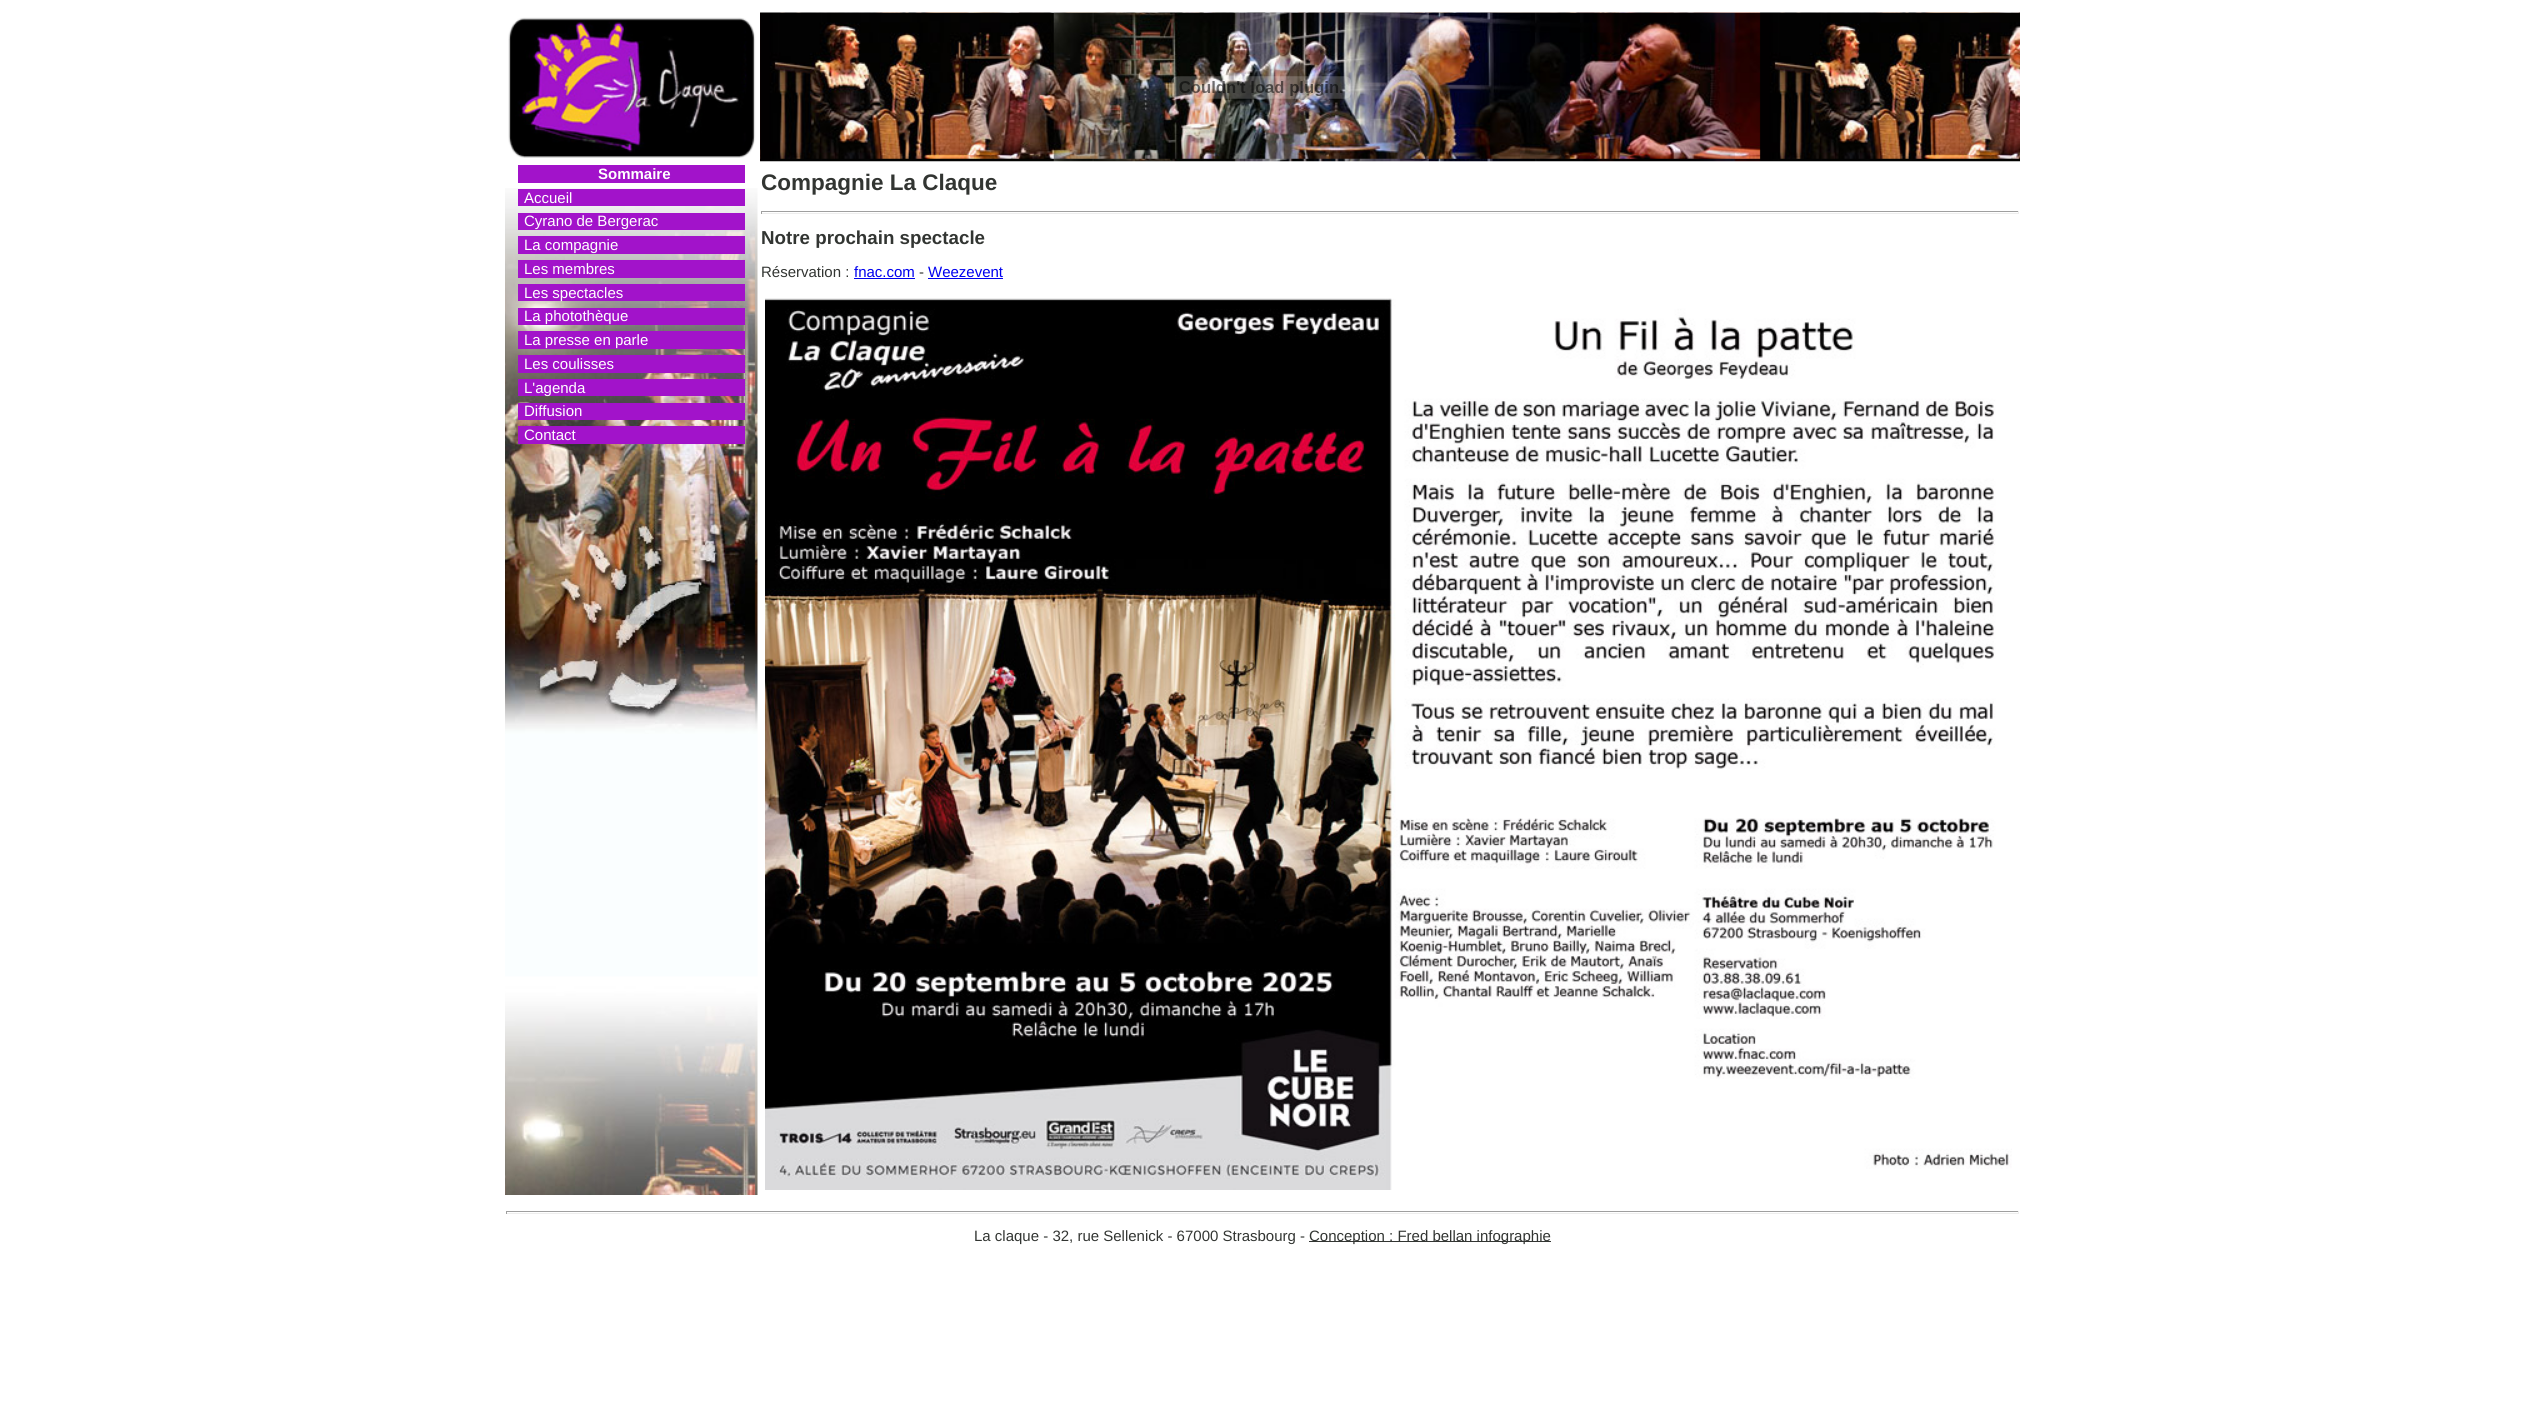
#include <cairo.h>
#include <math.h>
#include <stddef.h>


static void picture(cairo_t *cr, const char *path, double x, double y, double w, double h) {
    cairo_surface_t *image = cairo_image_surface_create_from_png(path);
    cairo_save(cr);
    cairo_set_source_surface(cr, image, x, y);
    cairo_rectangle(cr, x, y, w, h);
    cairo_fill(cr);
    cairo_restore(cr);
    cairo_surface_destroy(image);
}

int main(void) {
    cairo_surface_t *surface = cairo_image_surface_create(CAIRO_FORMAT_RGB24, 2525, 1401);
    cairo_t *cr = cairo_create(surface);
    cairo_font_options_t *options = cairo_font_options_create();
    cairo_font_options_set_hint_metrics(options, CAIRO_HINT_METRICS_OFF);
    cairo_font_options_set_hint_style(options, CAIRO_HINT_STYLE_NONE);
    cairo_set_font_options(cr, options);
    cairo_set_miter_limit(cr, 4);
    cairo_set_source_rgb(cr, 1, 1, 1);
    cairo_paint(cr);
    picture(cr, "img1.png", 508, 17, 248, 141);
    picture(cr, "img2.png", 760, 12, 1260, 150);
    picture(cr, "img3.png", 1171, 76, 181, 23);
    picture(cr, "img4.png", 505, 188, 253, 1007);
    cairo_set_source_rgb(cr, 0.635, 0.078, 0.792);
    cairo_rectangle(cr, 518, 165, 227, 18);
    cairo_fill(cr);
    cairo_select_font_face(cr, "Liberation Sans", CAIRO_FONT_SLANT_NORMAL, CAIRO_FONT_WEIGHT_BOLD);
    cairo_set_font_size(cr, 15);
    cairo_set_source_rgb(cr, 1, 1, 1);
    cairo_move_to(cr, 598, 179);
    cairo_show_text(cr, "Sommaire");
    cairo_set_source_rgb(cr, 0.635, 0.078, 0.792);
    cairo_rectangle(cr, 518, 189, 227, 17);
    cairo_fill(cr);
    cairo_select_font_face(cr, "Liberation Sans", CAIRO_FONT_SLANT_NORMAL, CAIRO_FONT_WEIGHT_NORMAL);
    cairo_set_source_rgb(cr, 1, 1, 1);
    cairo_move_to(cr, 524, 203);
    cairo_show_text(cr, "Accueil");
    cairo_set_source_rgb(cr, 0.635, 0.078, 0.792);
    cairo_rectangle(cr, 518, 213, 227, 17);
    cairo_fill(cr);
    cairo_set_source_rgb(cr, 1, 1, 1);
    cairo_move_to(cr, 524, 226);
    cairo_show_text(cr, "Cyrano de Bergerac");
    cairo_set_source_rgb(cr, 0.635, 0.078, 0.792);
    cairo_rectangle(cr, 518, 236, 227, 18);
    cairo_fill(cr);
    cairo_set_source_rgb(cr, 1, 1, 1);
    cairo_move_to(cr, 524, 250);
    cairo_show_text(cr, "La compagnie");
    cairo_set_source_rgb(cr, 0.635, 0.078, 0.792);
    cairo_rectangle(cr, 518, 260, 227, 18);
    cairo_fill(cr);
    cairo_set_source_rgb(cr, 1, 1, 1);
    cairo_move_to(cr, 524, 274);
    cairo_show_text(cr, "Les membres");
    cairo_set_source_rgb(cr, 0.635, 0.078, 0.792);
    cairo_rectangle(cr, 518, 284, 227, 17);
    cairo_fill(cr);
    cairo_set_source_rgb(cr, 1, 1, 1);
    cairo_move_to(cr, 524, 298);
    cairo_show_text(cr, "Les spectacles");
    cairo_set_source_rgb(cr, 0.635, 0.078, 0.792);
    cairo_rectangle(cr, 518, 308, 227, 17);
    cairo_fill(cr);
    cairo_set_source_rgb(cr, 1, 1, 1);
    cairo_move_to(cr, 524, 321);
    cairo_show_text(cr, "La photothèque");
    cairo_set_source_rgb(cr, 0.635, 0.078, 0.792);
    cairo_rectangle(cr, 518, 331, 227, 18);
    cairo_fill(cr);
    cairo_set_source_rgb(cr, 1, 1, 1);
    cairo_move_to(cr, 524, 345);
    cairo_show_text(cr, "La presse en parle");
    cairo_set_source_rgb(cr, 0.635, 0.078, 0.792);
    cairo_rectangle(cr, 518, 355, 227, 18);
    cairo_fill(cr);
    cairo_set_source_rgb(cr, 1, 1, 1);
    cairo_move_to(cr, 524, 369);
    cairo_show_text(cr, "Les coulisses");
    cairo_set_source_rgb(cr, 0.635, 0.078, 0.792);
    cairo_rectangle(cr, 518, 379, 227, 17);
    cairo_fill(cr);
    cairo_set_source_rgb(cr, 1, 1, 1);
    cairo_move_to(cr, 524, 393);
    cairo_show_text(cr, "L'agenda");
    cairo_set_source_rgb(cr, 0.635, 0.078, 0.792);
    cairo_rectangle(cr, 518, 403, 227, 17);
    cairo_fill(cr);
    cairo_set_source_rgb(cr, 1, 1, 1);
    cairo_move_to(cr, 524, 416);
    cairo_show_text(cr, "Diffusion");
    cairo_set_source_rgb(cr, 0.635, 0.078, 0.792);
    cairo_rectangle(cr, 518, 426, 227, 18);
    cairo_fill(cr);
    cairo_set_source_rgb(cr, 1, 1, 1);
    cairo_move_to(cr, 524, 440);
    cairo_show_text(cr, "Contact");
    cairo_select_font_face(cr, "Liberation Sans", CAIRO_FONT_SLANT_NORMAL, CAIRO_FONT_WEIGHT_BOLD);
    cairo_set_font_size(cr, 22.5);
    cairo_set_source_rgb(cr, 0.196, 0.208, 0.196);
    cairo_move_to(cr, 761, 190);
    cairo_show_text(cr, "Compagnie La Claque");
    cairo_set_source_rgb(cr, 0.624, 0.624, 0.624);
    cairo_rectangle(cr, 761, 211, 1258, 1);
    cairo_fill(cr);
    cairo_set_source_rgb(cr, 0.933, 0.933, 0.933);
    cairo_rectangle(cr, 2018, 211, 1, 3);
    cairo_fill(cr);
    cairo_rectangle(cr, 761, 213, 1258, 1);
    cairo_fill(cr);
    cairo_set_source_rgb(cr, 0.624, 0.624, 0.624);
    cairo_rectangle(cr, 761, 211, 1, 3);
    cairo_fill(cr);
    cairo_set_font_size(cr, 18.75);
    cairo_set_source_rgb(cr, 0.196, 0.208, 0.196);
    cairo_move_to(cr, 761, 244);
    cairo_show_text(cr, "Notre prochain spectacle");
    cairo_select_font_face(cr, "Liberation Sans", CAIRO_FONT_SLANT_NORMAL, CAIRO_FONT_WEIGHT_NORMAL);
    cairo_set_font_size(cr, 15);
    cairo_move_to(cr, 761, 277);
    cairo_show_text(cr, "Réservation :");
    cairo_set_source_rgb(cr, 0, 0, 0.933);
    cairo_move_to(cr, 854, 277);
    cairo_show_text(cr, "fnac.com");
    cairo_rectangle(cr, 854, 278, 61, 1);
    cairo_fill(cr);
    cairo_set_source_rgb(cr, 0.196, 0.208, 0.196);
    cairo_move_to(cr, 919, 277);
    cairo_show_text(cr, "-");
    cairo_set_source_rgb(cr, 0, 0, 0.933);
    cairo_move_to(cr, 928, 277);
    cairo_show_text(cr, "Weezevent");
    cairo_rectangle(cr, 928, 278, 75, 1);
    cairo_fill(cr);
    picture(cr, "img5.png", 765, 298, 1247, 892);
    cairo_set_source_rgb(cr, 0.624, 0.624, 0.624);
    cairo_rectangle(cr, 506, 1211, 1513, 1);
    cairo_fill(cr);
    cairo_set_source_rgb(cr, 0.933, 0.933, 0.933);
    cairo_rectangle(cr, 2018, 1211, 1, 3);
    cairo_fill(cr);
    cairo_rectangle(cr, 506, 1213, 1513, 1);
    cairo_fill(cr);
    cairo_set_source_rgb(cr, 0.624, 0.624, 0.624);
    cairo_rectangle(cr, 506, 1211, 1, 3);
    cairo_fill(cr);
    cairo_set_source_rgb(cr, 0.196, 0.208, 0.196);
    cairo_move_to(cr, 974, 1241);
    cairo_show_text(cr, "La claque - 32, rue Sellenick - 67000 Strasbourg -");
    cairo_rectangle(cr, 1309, 1241, 242, 1);
    cairo_fill(cr);
    cairo_move_to(cr, 1309, 1241);
    cairo_show_text(cr, "Conception : Fred bellan infographie");
    cairo_surface_write_to_png(surface, "page.png");
    cairo_font_options_destroy(options);
    cairo_destroy(cr);
    cairo_surface_destroy(surface);
    return 0;
}
